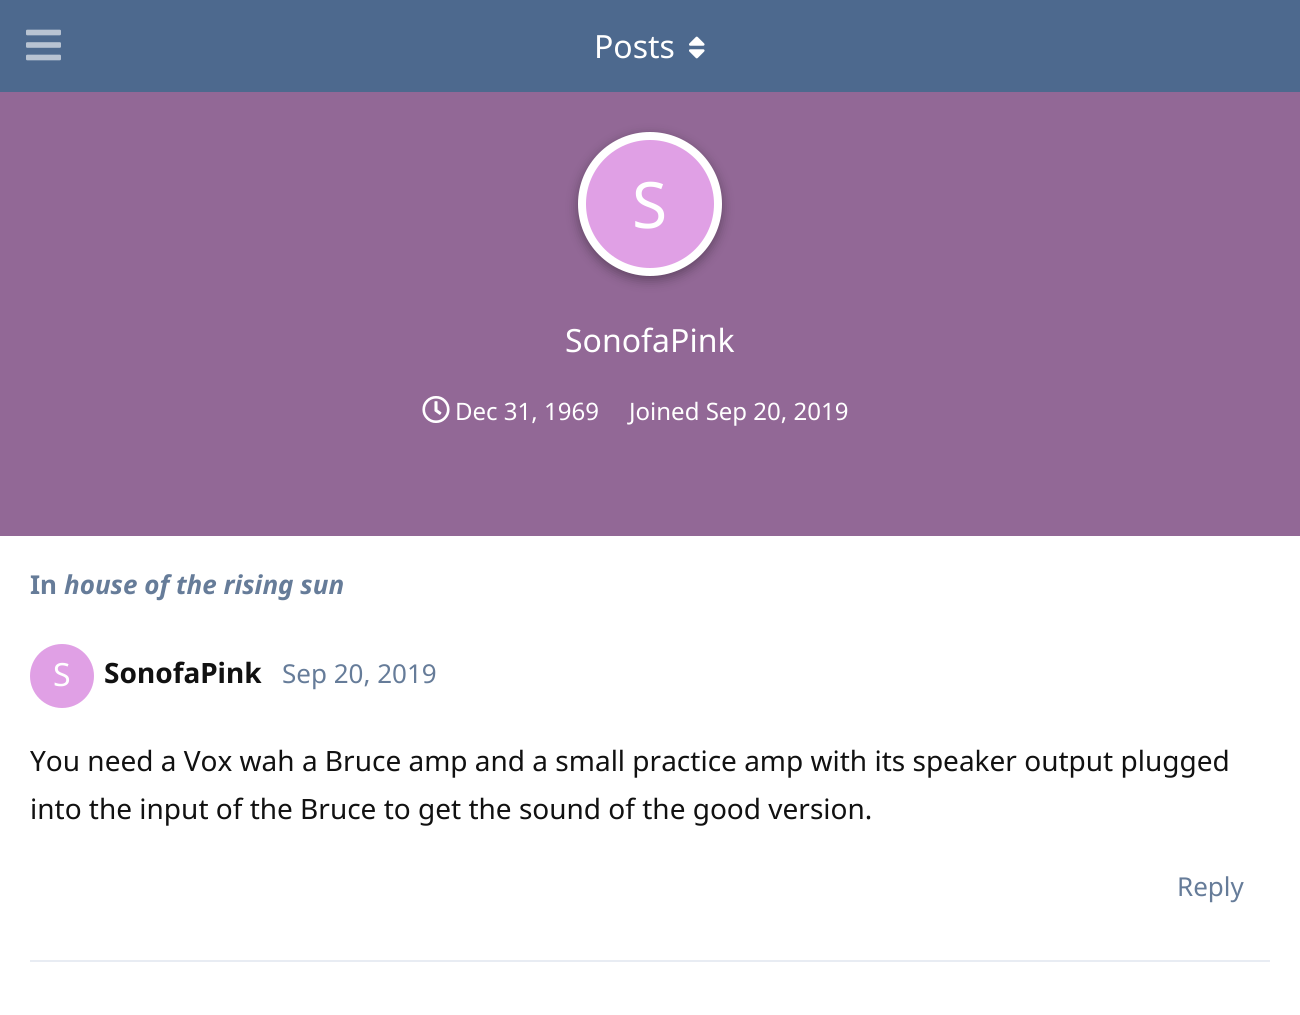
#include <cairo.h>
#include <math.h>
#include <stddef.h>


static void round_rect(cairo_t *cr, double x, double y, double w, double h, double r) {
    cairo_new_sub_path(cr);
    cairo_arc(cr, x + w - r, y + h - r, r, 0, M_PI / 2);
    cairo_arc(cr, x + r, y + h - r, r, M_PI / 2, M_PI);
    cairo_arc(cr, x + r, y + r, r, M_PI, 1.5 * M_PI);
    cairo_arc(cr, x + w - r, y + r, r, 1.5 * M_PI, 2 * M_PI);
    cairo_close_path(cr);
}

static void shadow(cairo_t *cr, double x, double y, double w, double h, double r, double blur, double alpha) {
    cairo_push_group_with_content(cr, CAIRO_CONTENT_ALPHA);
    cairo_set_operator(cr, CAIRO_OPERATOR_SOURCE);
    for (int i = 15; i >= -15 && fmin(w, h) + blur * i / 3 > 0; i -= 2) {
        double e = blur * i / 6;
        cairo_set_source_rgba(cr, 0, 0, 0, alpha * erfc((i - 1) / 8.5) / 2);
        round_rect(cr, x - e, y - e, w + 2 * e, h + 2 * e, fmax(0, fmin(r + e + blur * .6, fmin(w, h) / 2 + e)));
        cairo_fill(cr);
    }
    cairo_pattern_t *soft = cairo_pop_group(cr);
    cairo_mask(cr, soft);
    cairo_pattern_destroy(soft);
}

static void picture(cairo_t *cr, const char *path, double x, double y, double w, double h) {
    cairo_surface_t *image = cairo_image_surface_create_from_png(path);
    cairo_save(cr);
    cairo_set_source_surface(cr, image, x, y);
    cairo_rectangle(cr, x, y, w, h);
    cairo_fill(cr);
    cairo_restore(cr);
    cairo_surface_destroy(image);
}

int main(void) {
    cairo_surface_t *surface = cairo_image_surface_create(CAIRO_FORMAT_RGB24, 1300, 1015);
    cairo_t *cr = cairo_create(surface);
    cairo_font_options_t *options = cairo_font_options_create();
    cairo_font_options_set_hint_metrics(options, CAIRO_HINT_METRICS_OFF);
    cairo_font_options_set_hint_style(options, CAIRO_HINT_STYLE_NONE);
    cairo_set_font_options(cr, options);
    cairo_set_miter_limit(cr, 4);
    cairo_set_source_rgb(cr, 1, 1, 1);
    cairo_paint(cr);
    cairo_set_source_rgb(cr, 0.302, 0.412, 0.557);
    cairo_rectangle(cr, 0, 0, 1300, 92);
    cairo_fill(cr);
    picture(cr, "img1.png", 26, 29, 35, 32);
    cairo_select_font_face(cr, "Noto Sans", CAIRO_FONT_SLANT_NORMAL, CAIRO_FONT_WEIGHT_NORMAL);
    cairo_set_font_size(cr, 32);
    cairo_set_source_rgb(cr, 1, 1, 1);
    cairo_move_to(cr, 594, 58);
    cairo_show_text(cr, "Posts");
    picture(cr, "img2.png", 689, 36, 16, 23);
    cairo_set_source_rgb(cr, 0.91, 0.925, 0.953);
    cairo_rectangle(cr, 30, 960, 1240, 2);
    cairo_fill(cr);
    cairo_select_font_face(cr, "Noto Sans", CAIRO_FONT_SLANT_NORMAL, CAIRO_FONT_WEIGHT_BOLD);
    cairo_set_font_size(cr, 26);
    cairo_set_source_rgb(cr, 0.4, 0.486, 0.6);
    cairo_move_to(cr, 30, 594);
    cairo_show_text(cr, "In");
    cairo_select_font_face(cr, "Noto Sans", CAIRO_FONT_SLANT_ITALIC, CAIRO_FONT_WEIGHT_BOLD);
    cairo_move_to(cr, 64, 594);
    cairo_show_text(cr, "house of the rising sun");
    cairo_set_source_rgb(cr, 0.878, 0.627, 0.898);
    cairo_new_path(cr);
    cairo_arc(cr, 62, 676, 32, 0, 2 * M_PI);
    cairo_fill(cr);
    cairo_select_font_face(cr, "Noto Sans", CAIRO_FONT_SLANT_NORMAL, CAIRO_FONT_WEIGHT_NORMAL);
    cairo_set_font_size(cr, 32);
    cairo_set_source_rgb(cr, 1, 1, 1);
    cairo_move_to(cr, 53, 686);
    cairo_show_text(cr, "S");
    cairo_select_font_face(cr, "Noto Sans", CAIRO_FONT_SLANT_NORMAL, CAIRO_FONT_WEIGHT_BOLD);
    cairo_set_font_size(cr, 28);
    cairo_set_source_rgb(cr, 0.067, 0.067, 0.067);
    cairo_move_to(cr, 104, 683);
    cairo_show_text(cr, "SonofaPink");
    cairo_select_font_face(cr, "Noto Sans", CAIRO_FONT_SLANT_NORMAL, CAIRO_FONT_WEIGHT_NORMAL);
    cairo_set_font_size(cr, 26);
    cairo_set_source_rgb(cr, 0.4, 0.486, 0.6);
    cairo_move_to(cr, 282, 683);
    cairo_show_text(cr, "Sep 20, 2019");
    cairo_set_font_size(cr, 28);
    cairo_set_source_rgb(cr, 0.067, 0.067, 0.067);
    cairo_move_to(cr, 30, 771);
    cairo_show_text(cr, "You need a Vox wah a Bruce amp and a small practice amp with its speaker output plugged");
    cairo_move_to(cr, 30, 819);
    cairo_show_text(cr, "into the input of the Bruce to get the sound of the good version.");
    cairo_set_font_size(cr, 26);
    cairo_set_source_rgb(cr, 0.4, 0.486, 0.6);
    cairo_move_to(cr, 1177, 896);
    cairo_show_text(cr, "Reply");
    cairo_set_source_rgb(cr, 0.573, 0.408, 0.588);
    cairo_rectangle(cr, 0, 92, 1300, 444);
    cairo_fill(cr);
    cairo_set_source_rgb(cr, 0, 0, 0);
    shadow(cr, 578, 136, 144, 144, 72, 6, 0.35);
    cairo_set_source_rgb(cr, 0.878, 0.627, 0.898);
    cairo_arc(cr, 650, 204, 68, 0, 2 * M_PI);
    cairo_fill_preserve(cr);
    cairo_set_source_rgb(cr, 1, 1, 1);
    cairo_set_line_width(cr, 8);
    cairo_stroke(cr);
    cairo_set_font_size(cr, 64);
    cairo_move_to(cr, 632, 228);
    cairo_show_text(cr, "S");
    cairo_set_font_size(cr, 32);
    cairo_move_to(cr, 565, 352);
    cairo_show_text(cr, "SonofaPink");
    picture(cr, "img3.png", 422, 396, 28, 27);
    cairo_set_font_size(cr, 24);
    cairo_move_to(cr, 455, 420);
    cairo_show_text(cr, "Dec 31, 1969");
    cairo_move_to(cr, 629, 420);
    cairo_show_text(cr, "Joined Sep 20, 2019");
    cairo_surface_write_to_png(surface, "page.png");
    cairo_font_options_destroy(options);
    cairo_destroy(cr);
    cairo_surface_destroy(surface);
    return 0;
}
